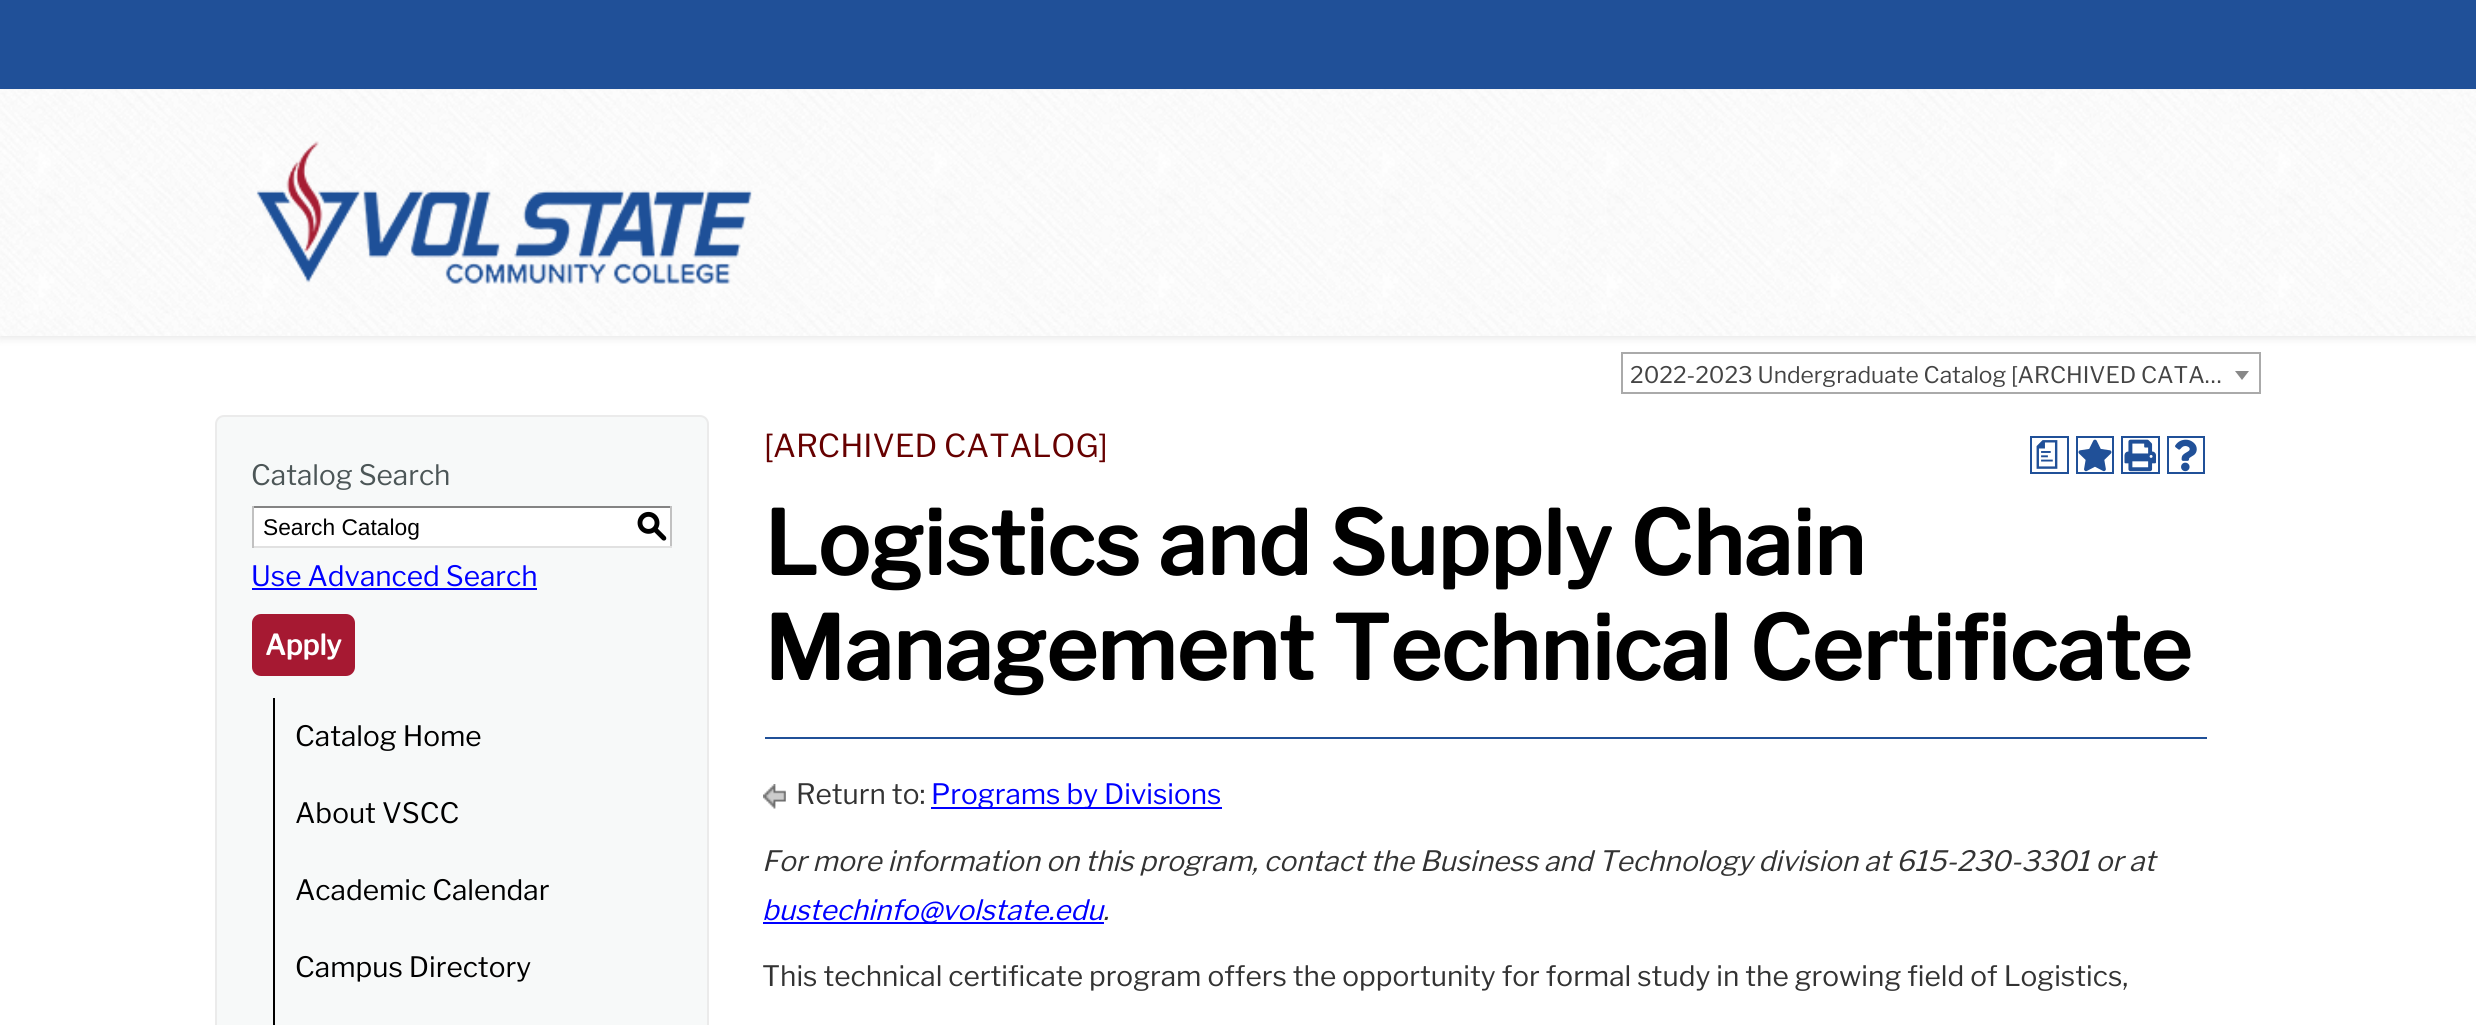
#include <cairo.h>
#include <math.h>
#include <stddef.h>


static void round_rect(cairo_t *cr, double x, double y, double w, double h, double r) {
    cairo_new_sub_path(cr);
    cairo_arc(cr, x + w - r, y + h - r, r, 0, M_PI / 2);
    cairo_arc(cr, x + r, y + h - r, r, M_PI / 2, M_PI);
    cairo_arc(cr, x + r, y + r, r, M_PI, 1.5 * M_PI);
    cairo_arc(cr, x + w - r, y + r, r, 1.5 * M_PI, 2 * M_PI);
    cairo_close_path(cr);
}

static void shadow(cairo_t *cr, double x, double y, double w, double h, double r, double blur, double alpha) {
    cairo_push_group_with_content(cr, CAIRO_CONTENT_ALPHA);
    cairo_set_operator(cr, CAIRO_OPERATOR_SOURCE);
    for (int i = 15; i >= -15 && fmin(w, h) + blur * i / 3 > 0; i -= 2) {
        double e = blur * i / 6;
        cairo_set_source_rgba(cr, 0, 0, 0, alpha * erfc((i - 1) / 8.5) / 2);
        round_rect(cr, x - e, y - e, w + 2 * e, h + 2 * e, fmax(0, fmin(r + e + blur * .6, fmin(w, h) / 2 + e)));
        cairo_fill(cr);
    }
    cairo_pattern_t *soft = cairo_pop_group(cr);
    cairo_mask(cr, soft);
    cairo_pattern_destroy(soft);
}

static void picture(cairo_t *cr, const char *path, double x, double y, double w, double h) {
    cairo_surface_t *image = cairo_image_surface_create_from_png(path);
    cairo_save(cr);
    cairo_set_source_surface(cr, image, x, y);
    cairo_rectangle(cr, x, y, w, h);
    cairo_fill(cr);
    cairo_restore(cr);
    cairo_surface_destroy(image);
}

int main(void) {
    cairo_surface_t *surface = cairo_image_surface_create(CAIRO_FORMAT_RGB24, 2476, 1025);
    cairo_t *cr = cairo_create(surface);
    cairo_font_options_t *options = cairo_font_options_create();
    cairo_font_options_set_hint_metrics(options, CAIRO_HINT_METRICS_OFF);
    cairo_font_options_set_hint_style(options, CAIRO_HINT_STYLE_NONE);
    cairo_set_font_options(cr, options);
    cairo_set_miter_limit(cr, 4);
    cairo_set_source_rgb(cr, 1, 1, 1);
    cairo_paint(cr);
    cairo_rectangle(cr, 1622, 353, 638, 40);
    cairo_set_source_rgb(cr, 0.667, 0.667, 0.667);
    cairo_stroke(cr);
    cairo_set_source_rgb(cr, 0, 0, 0);
    shadow(cr, 0, 2, 2476, 336, 0, 4.5, 0.1);
    cairo_set_source_rgb(cr, 0.125, 0.314, 0.596);
    cairo_rectangle(cr, 0, 0, 2476, 89);
    cairo_fill(cr);
    picture(cr, "img1.png", 0, 89, 2476, 247);
    picture(cr, "img2.png", 256, 141, 496, 143);
    cairo_select_font_face(cr, "Libre Franklin", CAIRO_FONT_SLANT_NORMAL, CAIRO_FONT_WEIGHT_NORMAL);
    cairo_set_font_size(cr, 22.75);
    cairo_set_source_rgb(cr, 0.267, 0.267, 0.267);
    cairo_move_to(cr, 1630, 383);
    cairo_show_text(cr, "2022-2023 Undergraduate Catalog [ARCHIVED CATA…");
    cairo_set_source_rgb(cr, 0.533, 0.533, 0.533);
    cairo_new_path(cr);
    cairo_move_to(cr, 2235, 371);
    cairo_line_to(cr, 2249, 371);
    cairo_line_to(cr, 2242, 380);
    cairo_close_path(cr);
    cairo_fill(cr);
    cairo_set_source_rgb(cr, 0.965, 0.973, 0.976);
    round_rect(cr, 216, 416, 492, 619, 8);
    cairo_fill_preserve(cr);
    cairo_set_source_rgb(cr, 0.918, 0.918, 0.918);
    cairo_stroke(cr);
    cairo_set_font_size(cr, 28);
    cairo_set_source_rgb(cr, 0.298, 0.337, 0.341);
    cairo_move_to(cr, 251, 485);
    cairo_show_text(cr, "Catalog Search");
    cairo_set_source_rgb(cr, 1, 1, 1);
    cairo_rectangle(cr, 254, 508, 416, 38);
    cairo_fill(cr);
    cairo_set_source_rgb(cr, 0.518, 0.518, 0.518);
    cairo_rectangle(cr, 252, 506, 420, 2);
    cairo_fill(cr);
    cairo_set_source_rgb(cr, 0.757, 0.757, 0.757);
    cairo_rectangle(cr, 670, 506, 2, 42);
    cairo_fill(cr);
    cairo_set_source_rgb(cr, 0.882, 0.882, 0.882);
    cairo_rectangle(cr, 252, 546, 420, 2);
    cairo_fill(cr);
    cairo_set_source_rgb(cr, 0.757, 0.757, 0.757);
    cairo_rectangle(cr, 252, 506, 2, 42);
    cairo_fill(cr);
    cairo_select_font_face(cr, "Liberation Sans", CAIRO_FONT_SLANT_NORMAL, CAIRO_FONT_WEIGHT_NORMAL);
    cairo_set_font_size(cr, 22.75);
    cairo_set_source_rgb(cr, 0, 0, 0);
    cairo_move_to(cr, 263, 535);
    cairo_show_text(cr, "Search Catalog");
    cairo_select_font_face(cr, "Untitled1 Medium", CAIRO_FONT_SLANT_NORMAL, CAIRO_FONT_WEIGHT_NORMAL);
    cairo_set_font_size(cr, 31.5);
    cairo_move_to(cr, 636, 536);
    cairo_show_text(cr, "S");
    cairo_select_font_face(cr, "Libre Franklin", CAIRO_FONT_SLANT_NORMAL, CAIRO_FONT_WEIGHT_NORMAL);
    cairo_set_font_size(cr, 28);
    cairo_set_source_rgb(cr, 0, 0, 1);
    cairo_move_to(cr, 251, 586);
    cairo_show_text(cr, "Use Advanced Search");
    cairo_rectangle(cr, 252, 588, 285, 2);
    cairo_fill(cr);
    cairo_set_source_rgb(cr, 0.651, 0.098, 0.196);
    round_rect(cr, 252, 614, 103, 62, 9);
    cairo_fill(cr);
    cairo_select_font_face(cr, "Libre Franklin", CAIRO_FONT_SLANT_NORMAL, CAIRO_FONT_WEIGHT_BOLD);
    cairo_set_source_rgb(cr, 1, 1, 1);
    cairo_move_to(cr, 265, 655);
    cairo_show_text(cr, "Apply");
    cairo_set_source_rgb(cr, 0, 0, 0);
    cairo_rectangle(cr, 273, 698, 2, 327);
    cairo_fill(cr);
    cairo_select_font_face(cr, "Libre Franklin", CAIRO_FONT_SLANT_NORMAL, CAIRO_FONT_WEIGHT_NORMAL);
    cairo_move_to(cr, 295, 746);
    cairo_show_text(cr, "Catalog Home");
    cairo_move_to(cr, 295, 823);
    cairo_show_text(cr, "About VSCC");
    cairo_move_to(cr, 295, 900);
    cairo_show_text(cr, "Academic Calendar");
    cairo_move_to(cr, 295, 977);
    cairo_show_text(cr, "Campus Directory");
    cairo_set_font_size(cr, 31.5);
    cairo_set_source_rgb(cr, 0.4, 0, 0);
    cairo_move_to(cr, 764, 457);
    cairo_show_text(cr, "[ARCHIVED CATALOG]");
    cairo_rectangle(cr, 2031, 437, 37, 36);
    cairo_set_source_rgb(cr, 0.125, 0.314, 0.596);
    cairo_stroke(cr);
    cairo_select_font_face(cr, "Untitled1 Medium", CAIRO_FONT_SLANT_NORMAL, CAIRO_FONT_WEIGHT_NORMAL);
    cairo_move_to(cr, 2031, 464);
    cairo_show_text(cr, "a");
    cairo_rectangle(cr, 2077, 437, 36, 36);
    cairo_stroke(cr);
    picture(cr, "img3.png", 2078, 439, 34, 33);
    cairo_rectangle(cr, 2122, 437, 37, 36);
    cairo_stroke(cr);
    picture(cr, "img4.png", 2124, 439, 32, 33);
    cairo_rectangle(cr, 2168, 437, 36, 36);
    cairo_stroke(cr);
    picture(cr, "img5.png", 2175, 439, 22, 33);
    cairo_select_font_face(cr, "Libre Franklin", CAIRO_FONT_SLANT_NORMAL, CAIRO_FONT_WEIGHT_BOLD);
    cairo_set_font_size(cr, 87.5);
    cairo_set_source_rgb(cr, 0, 0, 0);
    cairo_move_to(cr, 764, 575);
    cairo_show_text(cr, "Logistics and Supply Chain");
    cairo_move_to(cr, 764, 680);
    cairo_show_text(cr, "Management Technical Certificate");
    cairo_set_source_rgb(cr, 0.125, 0.314, 0.596);
    cairo_rectangle(cr, 765, 737, 1442, 2);
    cairo_fill(cr);
    picture(cr, "img6.png", 763, 784, 23, 25);
    cairo_select_font_face(cr, "Libre Franklin", CAIRO_FONT_SLANT_NORMAL, CAIRO_FONT_WEIGHT_NORMAL);
    cairo_set_font_size(cr, 28);
    cairo_set_source_rgb(cr, 0.2, 0.2, 0.2);
    cairo_move_to(cr, 796, 804);
    cairo_show_text(cr, "Return to:");
    cairo_set_source_rgb(cr, 0, 0, 1);
    cairo_rectangle(cr, 931, 807, 291, 2);
    cairo_fill(cr);
    cairo_move_to(cr, 931, 804);
    cairo_show_text(cr, "Programs by Divisions");
    cairo_select_font_face(cr, "Libre Franklin", CAIRO_FONT_SLANT_ITALIC, CAIRO_FONT_WEIGHT_NORMAL);
    cairo_set_source_rgb(cr, 0.2, 0.2, 0.2);
    cairo_move_to(cr, 762, 871);
    cairo_show_text(cr, "For more information on this program, contact the Business and Technology division at 615-230-3301 or at");
    cairo_set_source_rgb(cr, 0, 0, 1);
    cairo_rectangle(cr, 763, 922, 341, 2);
    cairo_fill(cr);
    cairo_move_to(cr, 762, 920);
    cairo_show_text(cr, "bustechinfo@volstate.edu");
    cairo_set_source_rgb(cr, 0.2, 0.2, 0.2);
    cairo_move_to(cr, 1103, 920);
    cairo_show_text(cr, ".");
    cairo_select_font_face(cr, "Libre Franklin", CAIRO_FONT_SLANT_NORMAL, CAIRO_FONT_WEIGHT_NORMAL);
    cairo_move_to(cr, 762, 986);
    cairo_show_text(cr, "This technical certificate program offers the opportunity for formal study in the growing field of Logistics,");
    cairo_surface_write_to_png(surface, "page.png");
    cairo_font_options_destroy(options);
    cairo_destroy(cr);
    cairo_surface_destroy(surface);
    return 0;
}
